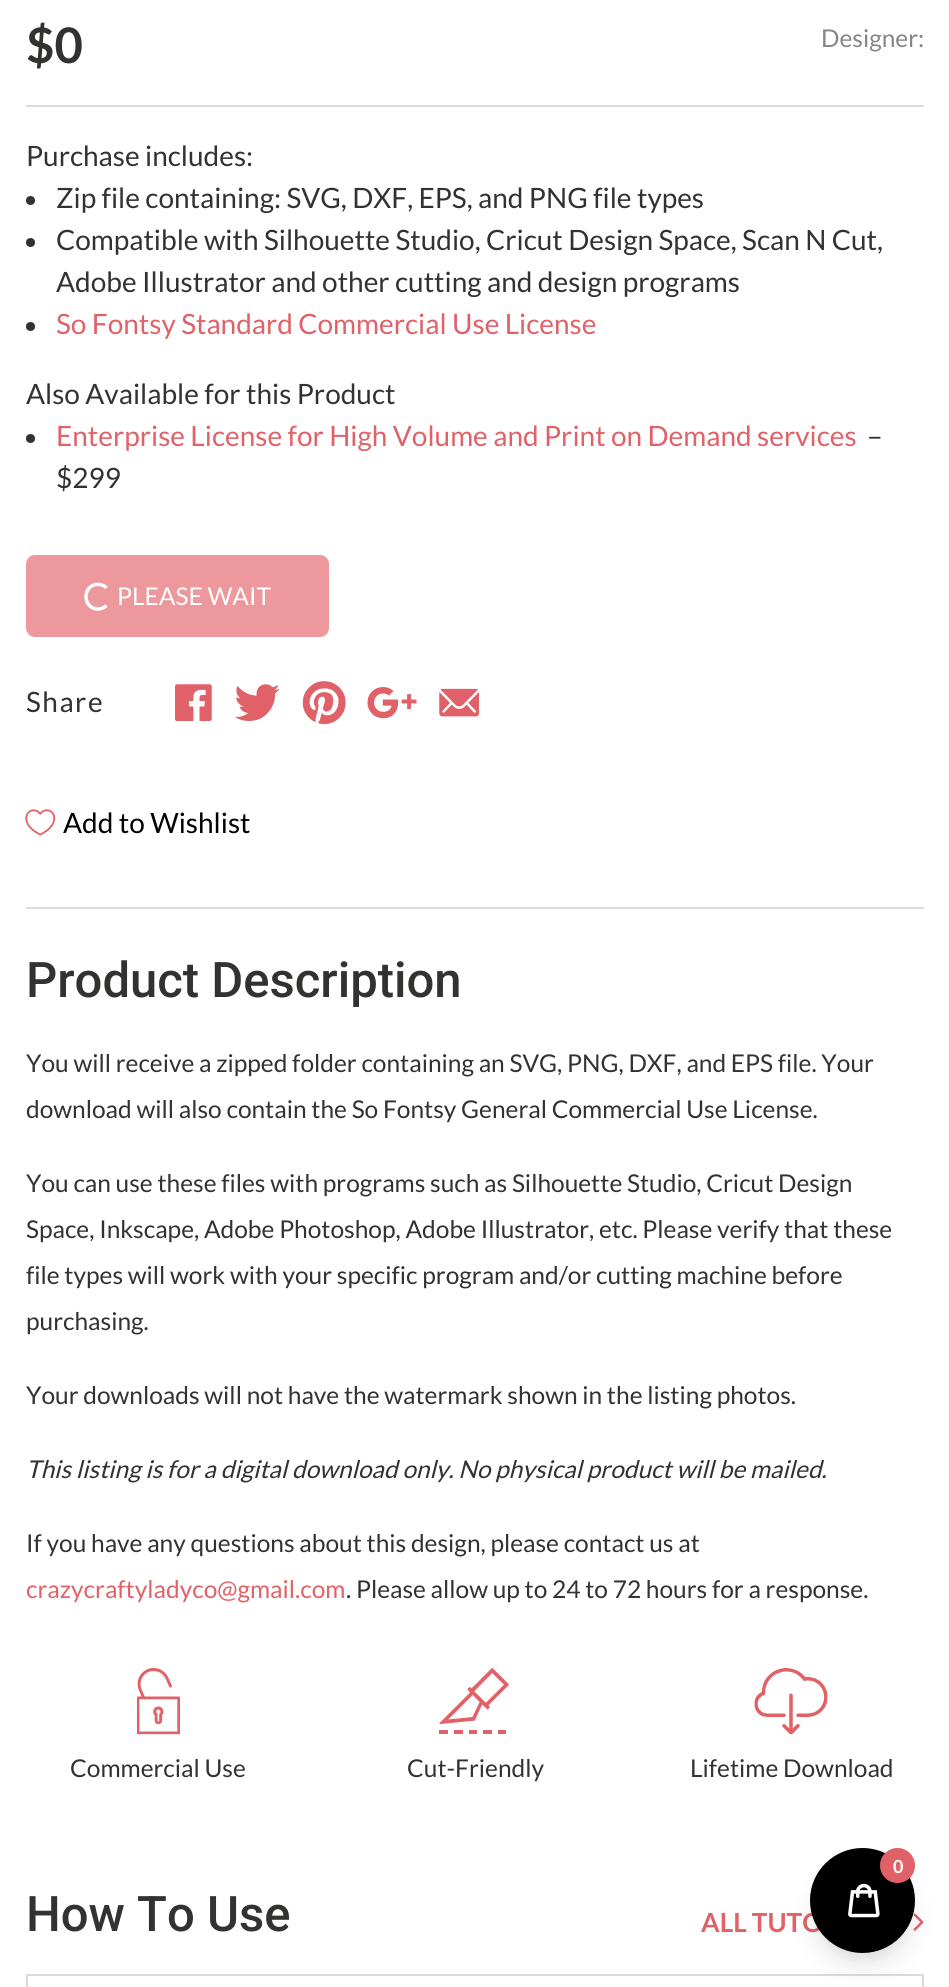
#include <cairo.h>
#include <math.h>
#include <stddef.h>


static void spaced_text(cairo_t *cr, double x, double y, const char *s, double letter, double word) {
    cairo_move_to(cr, x, y);
    while (*s) {
        char ch[5] = {0};
        int n = 0;
        do ch[n++] = *s++; while ((*s & 0xC0) == 0x80);
        cairo_show_text(cr, ch);
        cairo_rel_move_to(cr, letter + word * (*ch == ' '), 0);
    }
}

static void round_rect(cairo_t *cr, double x, double y, double w, double h, double r) {
    cairo_new_sub_path(cr);
    cairo_arc(cr, x + w - r, y + h - r, r, 0, M_PI / 2);
    cairo_arc(cr, x + r, y + h - r, r, M_PI / 2, M_PI);
    cairo_arc(cr, x + r, y + r, r, M_PI, 1.5 * M_PI);
    cairo_arc(cr, x + w - r, y + r, r, 1.5 * M_PI, 2 * M_PI);
    cairo_close_path(cr);
}

static void shadow(cairo_t *cr, double x, double y, double w, double h, double r, double blur, double alpha) {
    cairo_push_group_with_content(cr, CAIRO_CONTENT_ALPHA);
    cairo_set_operator(cr, CAIRO_OPERATOR_SOURCE);
    for (int i = 15; i >= -15 && fmin(w, h) + blur * i / 3 > 0; i -= 2) {
        double e = blur * i / 6;
        cairo_set_source_rgba(cr, 0, 0, 0, alpha * erfc((i - 1) / 8.5) / 2);
        round_rect(cr, x - e, y - e, w + 2 * e, h + 2 * e, fmax(0, fmin(r + e + blur * .6, fmin(w, h) / 2 + e)));
        cairo_fill(cr);
    }
    cairo_pattern_t *soft = cairo_pop_group(cr);
    cairo_mask(cr, soft);
    cairo_pattern_destroy(soft);
}

static void picture(cairo_t *cr, const char *path, double x, double y, double w, double h) {
    cairo_surface_t *image = cairo_image_surface_create_from_png(path);
    cairo_save(cr);
    cairo_set_source_surface(cr, image, x, y);
    cairo_rectangle(cr, x, y, w, h);
    cairo_fill(cr);
    cairo_restore(cr);
    cairo_surface_destroy(image);
}

int main(void) {
    cairo_surface_t *surface = cairo_image_surface_create(CAIRO_FORMAT_RGB24, 949, 1987);
    cairo_t *cr = cairo_create(surface);
    cairo_font_options_t *options = cairo_font_options_create();
    cairo_font_options_set_hint_metrics(options, CAIRO_HINT_METRICS_OFF);
    cairo_font_options_set_hint_style(options, CAIRO_HINT_STYLE_NONE);
    cairo_set_font_options(cr, options);
    cairo_set_miter_limit(cr, 4);
    cairo_set_source_rgb(cr, 1, 1, 1);
    cairo_paint(cr);
    cairo_set_source_rgb(cr, 0.859, 0.859, 0.855);
    cairo_rectangle(cr, 26, 907, 898, 2);
    cairo_fill(cr);
    cairo_rectangle(cr, 26, 105, 898, 2);
    cairo_fill(cr);
    cairo_select_font_face(cr, "Lato", CAIRO_FONT_SLANT_NORMAL, CAIRO_FONT_WEIGHT_BOLD);
    cairo_set_font_size(cr, 49);
    cairo_set_source_rgb(cr, 0.196, 0.2, 0.188);
    cairo_move_to(cr, 26, 63);
    cairo_show_text(cr, "$0");
    cairo_select_font_face(cr, "Lato", CAIRO_FONT_SLANT_NORMAL, CAIRO_FONT_WEIGHT_NORMAL);
    cairo_set_font_size(cr, 24.5);
    cairo_set_source_rgb(cr, 0.525, 0.525, 0.525);
    cairo_move_to(cr, 821, 47);
    cairo_show_text(cr, "Designer:");
    cairo_set_font_size(cr, 28);
    cairo_set_source_rgb(cr, 0.196, 0.2, 0.188);
    cairo_move_to(cr, 26, 166);
    cairo_show_text(cr, "Purchase includes:");
    cairo_new_path(cr);
    cairo_arc(cr, 30.5, 200.5, 4.5, 0, 2 * M_PI);
    cairo_fill(cr);
    cairo_move_to(cr, 56, 208);
    cairo_show_text(cr, "Zip file containing: SVG, DXF, EPS, and PNG file types");
    cairo_new_path(cr);
    cairo_arc(cr, 30.5, 242.5, 4.5, 0, 2 * M_PI);
    cairo_fill(cr);
    cairo_move_to(cr, 56, 250);
    cairo_show_text(cr, "Compatible with Silhouette Studio, Cricut Design Space, Scan N Cut,");
    cairo_move_to(cr, 56, 292);
    cairo_show_text(cr, "Adobe Illustrator and other cutting and design programs");
    cairo_new_path(cr);
    cairo_arc(cr, 30.5, 326.5, 4.5, 0, 2 * M_PI);
    cairo_fill(cr);
    cairo_set_source_rgb(cr, 0.878, 0.38, 0.404);
    cairo_move_to(cr, 56, 334);
    cairo_show_text(cr, "So Fontsy Standard Commercial Use License");
    cairo_set_source_rgb(cr, 0.196, 0.2, 0.188);
    cairo_move_to(cr, 26, 404);
    cairo_show_text(cr, "Also Available for this Product");
    cairo_new_path(cr);
    cairo_arc(cr, 30.5, 438.5, 4.5, 0, 2 * M_PI);
    cairo_fill(cr);
    cairo_set_source_rgb(cr, 0.878, 0.38, 0.404);
    cairo_move_to(cr, 56, 446);
    cairo_show_text(cr, "Enterprise License for High Volume and Print on Demand services");
    cairo_set_source_rgb(cr, 0.196, 0.2, 0.188);
    cairo_move_to(cr, 867, 446);
    cairo_show_text(cr, "–");
    cairo_move_to(cr, 56, 488);
    cairo_show_text(cr, "$299");
    cairo_set_source_rgb(cr, 0.922, 0.596, 0.612);
    round_rect(cr, 27, 556, 301, 80, 8);
    cairo_fill_preserve(cr);
    cairo_stroke(cr);
    cairo_new_path(cr);
    cairo_move_to(cr, 106.5, 605.5);
    cairo_curve_to(cr, 104.5, 607.5, 101, 609, 98, 609);
    cairo_curve_to(cr, 83.5, 609, 81.5, 587.5, 95.5, 584.5);
    cairo_curve_to(cr, 99.5, 584, 104, 585, 106.5, 588);
    cairo_set_source_rgb(cr, 1, 1, 1);
    cairo_set_line_width(cr, 3.5);
    cairo_stroke(cr);
    cairo_set_font_size(cr, 24.5);
    cairo_move_to(cr, 117, 605);
    cairo_show_text(cr, "PLEASE WAIT");
    cairo_set_font_size(cr, 28);
    cairo_set_source_rgb(cr, 0.196, 0.2, 0.188);
    spaced_text(cr, 26, 712, "Share", 1.5, 0);
    picture(cr, "img1.png", 175, 684, 37, 37);
    picture(cr, "img2.png", 234, 684, 46, 37);
    picture(cr, "img3.png", 302, 681, 44, 44);
    picture(cr, "img4.png", 367, 687, 50, 32);
    picture(cr, "img5.png", 439, 688, 41, 29);
    picture(cr, "img6.png", 25, 809, 31, 27);
    cairo_set_source_rgb(cr, 0, 0, 0);
    cairo_move_to(cr, 63, 833);
    cairo_show_text(cr, "Add to Wishlist");
    cairo_select_font_face(cr, "Roboto Medium", CAIRO_FONT_SLANT_NORMAL, CAIRO_FONT_WEIGHT_NORMAL);
    cairo_set_font_size(cr, 49);
    cairo_set_source_rgb(cr, 0.196, 0.2, 0.188);
    cairo_move_to(cr, 26, 997);
    cairo_show_text(cr, "Product Description");
    cairo_select_font_face(cr, "Lato", CAIRO_FONT_SLANT_NORMAL, CAIRO_FONT_WEIGHT_NORMAL);
    cairo_set_font_size(cr, 24.5);
    cairo_move_to(cr, 26, 1072);
    cairo_show_text(cr, "You will receive a zipped folder containing an SVG, PNG, DXF, and EPS file. Your");
    cairo_move_to(cr, 26, 1118);
    cairo_show_text(cr, "download will also contain the So Fontsy General Commercial Use License.");
    cairo_move_to(cr, 26, 1192);
    cairo_show_text(cr, "You can use these files with programs such as Silhouette Studio, Cricut Design");
    cairo_move_to(cr, 26, 1238);
    cairo_show_text(cr, "Space, Inkscape, Adobe Photoshop, Adobe Illustrator, etc. Please verify that these");
    cairo_move_to(cr, 26, 1284);
    cairo_show_text(cr, "file types will work with your specific program and/or cutting machine before");
    cairo_move_to(cr, 26, 1330);
    cairo_show_text(cr, "purchasing.");
    cairo_move_to(cr, 26, 1404);
    cairo_show_text(cr, "Your downloads will not have the watermark shown in the listing photos.");
    cairo_select_font_face(cr, "Lato", CAIRO_FONT_SLANT_ITALIC, CAIRO_FONT_WEIGHT_NORMAL);
    cairo_move_to(cr, 26, 1478);
    cairo_show_text(cr, "This listing is for a digital download only. No physical product will be mailed.");
    cairo_select_font_face(cr, "Lato", CAIRO_FONT_SLANT_NORMAL, CAIRO_FONT_WEIGHT_NORMAL);
    cairo_move_to(cr, 26, 1552);
    cairo_show_text(cr, "If you have any questions about this design, please contact us at");
    cairo_set_source_rgb(cr, 0.878, 0.38, 0.404);
    cairo_move_to(cr, 26, 1598);
    cairo_show_text(cr, "crazycraftyladyco@gmail.com");
    cairo_set_source_rgb(cr, 0.196, 0.2, 0.188);
    cairo_move_to(cr, 346, 1598);
    cairo_show_text(cr, ". Please allow up to 24 to 72 hours for a response.");
    picture(cr, "img7.png", 137, 1668, 43, 67);
    cairo_move_to(cr, 70, 1777);
    cairo_show_text(cr, "Commercial Use");
    picture(cr, "img8.png", 439, 1668, 70, 66);
    cairo_move_to(cr, 407, 1777);
    cairo_show_text(cr, "Cut-Friendly");
    picture(cr, "img9.png", 754, 1668, 74, 67);
    cairo_move_to(cr, 690, 1777);
    cairo_show_text(cr, "Lifetime Download");
    cairo_select_font_face(cr, "Roboto Medium", CAIRO_FONT_SLANT_NORMAL, CAIRO_FONT_WEIGHT_NORMAL);
    cairo_set_font_size(cr, 49);
    cairo_move_to(cr, 26, 1931);
    cairo_show_text(cr, "How To Use");
    cairo_select_font_face(cr, "Lato", CAIRO_FONT_SLANT_NORMAL, CAIRO_FONT_WEIGHT_BOLD);
    cairo_set_font_size(cr, 26.25);
    cairo_set_source_rgb(cr, 0.878, 0.38, 0.404);
    cairo_move_to(cr, 701, 1932);
    cairo_show_text(cr, "ALL TUTO");
    picture(cr, "img10.png", 913, 1913, 11, 18);
    cairo_rectangle(cr, 27, 1975, 896, 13);
    cairo_set_source_rgb(cr, 0.859, 0.859, 0.855);
    cairo_set_line_width(cr, 2);
    cairo_stroke(cr);
    cairo_set_source_rgb(cr, 0, 0, 0);
    shadow(cr, 814, 1859, 98, 98, 49, 5, 0.05);
    shadow(cr, 816, 1871, 94, 94, 47, 13, 0.1);
    cairo_set_source_rgb(cr, 0, 0, 0);
    cairo_arc(cr, 862.5, 1900.5, 52.5, 0, 2 * M_PI);
    cairo_fill(cr);
    cairo_set_source_rgb(cr, 0.878, 0.38, 0.404);
    cairo_arc(cr, 897.5, 1865.5, 17.5, 0, 2 * M_PI);
    cairo_fill(cr);
    cairo_set_font_size(cr, 18);
    cairo_set_source_rgb(cr, 1, 1, 1);
    cairo_move_to(cr, 893, 1873);
    cairo_show_text(cr, "0");
    picture(cr, "img11.png", 848, 1883, 32, 35);
    cairo_surface_write_to_png(surface, "page.png");
    cairo_font_options_destroy(options);
    cairo_destroy(cr);
    cairo_surface_destroy(surface);
    return 0;
}
